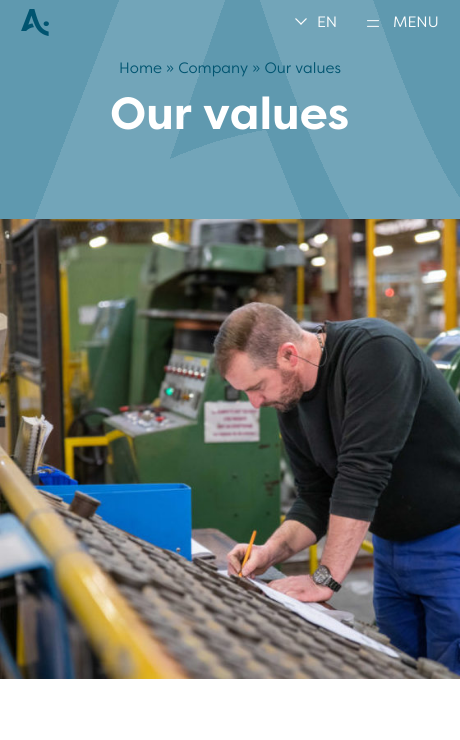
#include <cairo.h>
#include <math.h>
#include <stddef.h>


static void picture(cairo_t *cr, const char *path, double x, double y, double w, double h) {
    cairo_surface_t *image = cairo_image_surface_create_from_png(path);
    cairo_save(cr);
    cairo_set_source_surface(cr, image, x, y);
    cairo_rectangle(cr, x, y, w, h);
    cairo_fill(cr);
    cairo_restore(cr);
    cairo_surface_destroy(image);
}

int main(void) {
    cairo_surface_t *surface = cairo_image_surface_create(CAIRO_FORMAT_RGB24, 460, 740);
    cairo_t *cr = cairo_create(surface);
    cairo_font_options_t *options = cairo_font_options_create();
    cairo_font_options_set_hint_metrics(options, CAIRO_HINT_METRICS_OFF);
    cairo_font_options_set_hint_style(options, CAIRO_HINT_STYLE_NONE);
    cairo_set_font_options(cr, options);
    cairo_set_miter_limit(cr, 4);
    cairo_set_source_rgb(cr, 1, 1, 1);
    cairo_paint(cr);
    cairo_set_source_rgb(cr, 0.373, 0.6, 0.686);
    cairo_rectangle(cr, 0, 0, 460, 219);
    cairo_fill(cr);
    picture(cr, "img4.png", 35, 0, 425, 219);
    picture(cr, "img1.png", 21, 9, 28, 27);
    picture(cr, "img2.png", 295, 18, 12, 7);
    cairo_select_font_face(cr, "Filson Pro", CAIRO_FONT_SLANT_NORMAL, CAIRO_FONT_WEIGHT_NORMAL);
    cairo_set_font_size(cr, 15);
    cairo_set_source_rgb(cr, 1, 1, 1);
    cairo_move_to(cr, 317, 27);
    cairo_show_text(cr, "EN");
    picture(cr, "img3.png", 367, 20, 12, 7);
    cairo_move_to(cr, 393, 27);
    cairo_show_text(cr, "MENU");
    cairo_set_source_rgb(cr, 0, 0.329, 0.439);
    cairo_move_to(cr, 119, 73);
    cairo_show_text(cr, "Home » Company » Our values");
    cairo_select_font_face(cr, "Filson Pro", CAIRO_FONT_SLANT_NORMAL, CAIRO_FONT_WEIGHT_BOLD);
    cairo_set_font_size(cr, 45);
    cairo_set_source_rgb(cr, 1, 1, 1);
    cairo_move_to(cr, 110, 129);
    cairo_show_text(cr, "Our values");
    picture(cr, "img5.png", 0, 219, 460, 460);
    cairo_surface_write_to_png(surface, "page.png");
    cairo_font_options_destroy(options);
    cairo_destroy(cr);
    cairo_surface_destroy(surface);
    return 0;
}
